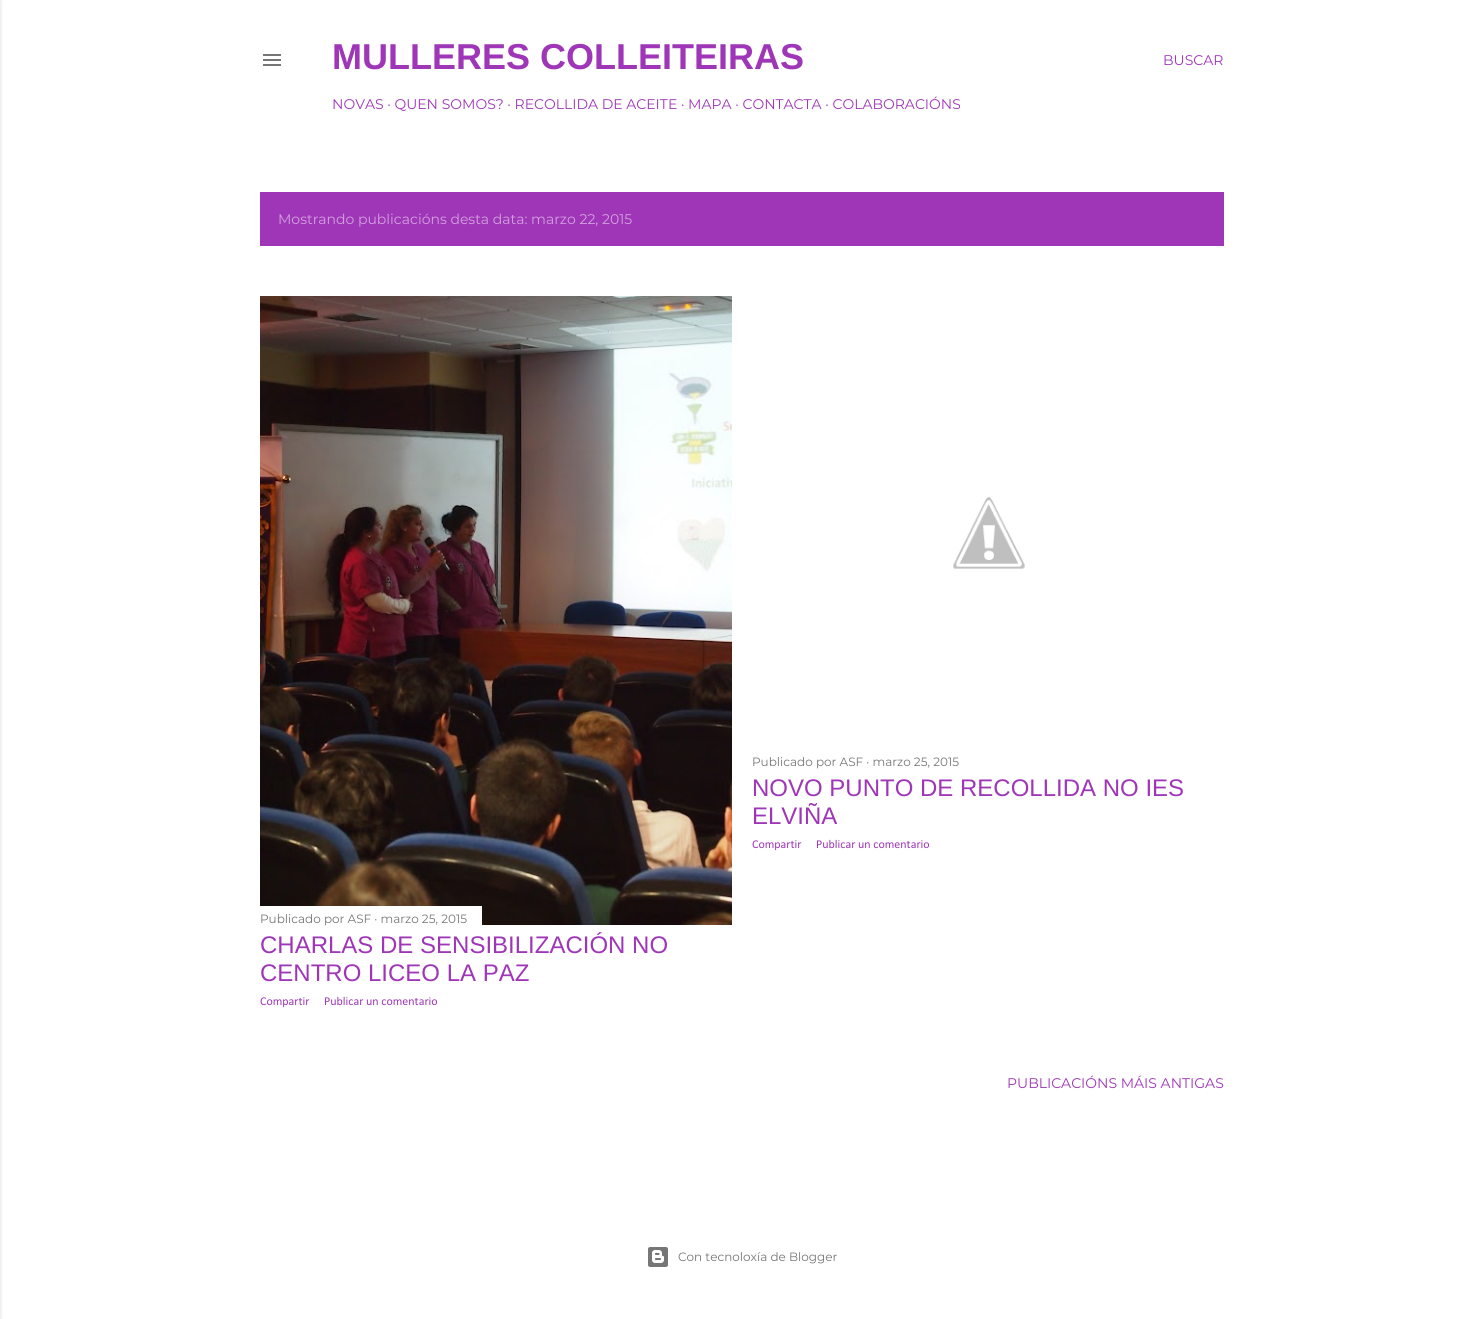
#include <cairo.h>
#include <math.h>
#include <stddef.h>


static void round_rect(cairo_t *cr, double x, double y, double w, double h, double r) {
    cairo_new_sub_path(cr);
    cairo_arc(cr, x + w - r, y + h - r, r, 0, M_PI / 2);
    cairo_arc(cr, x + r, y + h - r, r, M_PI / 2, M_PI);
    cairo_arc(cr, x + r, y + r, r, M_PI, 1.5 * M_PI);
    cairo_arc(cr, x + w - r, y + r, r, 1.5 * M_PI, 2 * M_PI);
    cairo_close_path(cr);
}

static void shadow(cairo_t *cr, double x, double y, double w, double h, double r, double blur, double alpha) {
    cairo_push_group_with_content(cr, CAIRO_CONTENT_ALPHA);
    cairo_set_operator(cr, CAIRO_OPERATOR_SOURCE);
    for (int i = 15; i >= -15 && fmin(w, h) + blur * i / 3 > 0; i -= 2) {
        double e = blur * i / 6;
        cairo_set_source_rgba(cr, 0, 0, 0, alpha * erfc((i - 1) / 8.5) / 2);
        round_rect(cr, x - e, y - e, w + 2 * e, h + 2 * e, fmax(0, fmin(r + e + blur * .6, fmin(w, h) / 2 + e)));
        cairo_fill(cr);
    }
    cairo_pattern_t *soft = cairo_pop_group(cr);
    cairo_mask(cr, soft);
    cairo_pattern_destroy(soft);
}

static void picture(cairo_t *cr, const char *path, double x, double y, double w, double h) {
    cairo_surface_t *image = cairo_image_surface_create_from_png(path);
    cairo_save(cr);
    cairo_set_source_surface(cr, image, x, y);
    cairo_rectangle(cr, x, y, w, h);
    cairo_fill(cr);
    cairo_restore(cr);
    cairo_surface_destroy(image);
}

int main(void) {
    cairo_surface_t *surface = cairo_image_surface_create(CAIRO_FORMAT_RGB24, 1483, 1319);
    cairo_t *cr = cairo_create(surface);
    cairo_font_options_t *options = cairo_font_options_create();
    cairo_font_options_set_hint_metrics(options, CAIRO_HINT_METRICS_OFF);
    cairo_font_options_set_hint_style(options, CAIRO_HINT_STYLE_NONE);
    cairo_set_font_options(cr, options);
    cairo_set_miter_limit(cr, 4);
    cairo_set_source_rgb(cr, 1, 1, 1);
    cairo_paint(cr);
    cairo_set_source_rgb(cr, 0, 0, 0);
    shadow(cr, -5, 0, 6, 1319, 0, 1.5, 0.1);
    picture(cr, "img1.png", 263, 54, 18, 12);
    cairo_select_font_face(cr, "Liberation Sans", CAIRO_FONT_SLANT_NORMAL, CAIRO_FONT_WEIGHT_BOLD);
    cairo_set_font_size(cr, 36);
    cairo_set_source_rgb(cr, 0.624, 0.212, 0.722);
    cairo_move_to(cr, 332, 69);
    cairo_show_text(cr, "MULLERES COLLEITEIRAS");
    cairo_select_font_face(cr, "Montserrat", CAIRO_FONT_SLANT_NORMAL, CAIRO_FONT_WEIGHT_NORMAL);
    cairo_set_font_size(cr, 14);
    cairo_move_to(cr, 332, 109);
    cairo_show_text(cr, "NOVAS · QUEN SOMOS? · RECOLLIDA DE ACEITE · MAPA · CONTACTA · COLABORACIÓNS");
    cairo_move_to(cr, 1163, 65);
    cairo_show_text(cr, "BUSCAR");
    cairo_rectangle(cr, 260, 192, 964, 54);
    cairo_fill(cr);
    cairo_set_source_rgb(cr, 0.824, 0.631, 0.871);
    cairo_move_to(cr, 278, 224);
    cairo_show_text(cr, "Mostrando publicacións desta data: marzo 22, 2015");
    picture(cr, "img2.png", 953, 497, 72, 72);
    cairo_set_font_size(cr, 12);
    cairo_set_source_rgb(cr, 0.463, 0.463, 0.463);
    cairo_move_to(cr, 752, 766);
    cairo_show_text(cr, "Publicado por ASF · marzo 25, 2015");
    cairo_select_font_face(cr, "Liberation Sans", CAIRO_FONT_SLANT_NORMAL, CAIRO_FONT_WEIGHT_NORMAL);
    cairo_set_font_size(cr, 24);
    cairo_set_source_rgb(cr, 0.624, 0.212, 0.722);
    cairo_move_to(cr, 752, 796);
    cairo_show_text(cr, "NOVO PUNTO DE RECOLLIDA NO IES");
    cairo_move_to(cr, 752, 824);
    cairo_show_text(cr, "ELVIÑA");
    cairo_select_font_face(cr, "Calibri", CAIRO_FONT_SLANT_NORMAL, CAIRO_FONT_WEIGHT_NORMAL);
    cairo_set_font_size(cr, 12);
    cairo_move_to(cr, 752, 848);
    cairo_show_text(cr, "Compartir");
    cairo_move_to(cr, 816, 848);
    cairo_show_text(cr, "Publicar un comentario");
    picture(cr, "img3.png", 260, 296, 472, 629);
    cairo_set_source_rgb(cr, 1, 1, 1);
    cairo_rectangle(cr, 260, 906, 222, 19);
    cairo_fill(cr);
    cairo_select_font_face(cr, "Montserrat", CAIRO_FONT_SLANT_NORMAL, CAIRO_FONT_WEIGHT_NORMAL);
    cairo_set_source_rgb(cr, 0.463, 0.463, 0.463);
    cairo_move_to(cr, 260, 923);
    cairo_show_text(cr, "Publicado por ASF · marzo 25, 2015");
    cairo_select_font_face(cr, "Liberation Sans", CAIRO_FONT_SLANT_NORMAL, CAIRO_FONT_WEIGHT_NORMAL);
    cairo_set_font_size(cr, 24);
    cairo_set_source_rgb(cr, 0.624, 0.212, 0.722);
    cairo_move_to(cr, 260, 953);
    cairo_show_text(cr, "CHARLAS DE SENSIBILIZACIÓN NO");
    cairo_move_to(cr, 260, 981);
    cairo_show_text(cr, "CENTRO LICEO LA PAZ");
    cairo_select_font_face(cr, "Calibri", CAIRO_FONT_SLANT_NORMAL, CAIRO_FONT_WEIGHT_NORMAL);
    cairo_set_font_size(cr, 12);
    cairo_move_to(cr, 260, 1005);
    cairo_show_text(cr, "Compartir");
    cairo_move_to(cr, 324, 1005);
    cairo_show_text(cr, "Publicar un comentario");
    cairo_select_font_face(cr, "Montserrat", CAIRO_FONT_SLANT_NORMAL, CAIRO_FONT_WEIGHT_NORMAL);
    cairo_set_font_size(cr, 14);
    cairo_move_to(cr, 1007, 1088);
    cairo_show_text(cr, "PUBLICACIÓNS MÁIS ANTIGAS");
    picture(cr, "img4.png", 648, 1247, 20, 20);
    cairo_set_font_size(cr, 12);
    cairo_set_source_rgb(cr, 0.463, 0.463, 0.463);
    cairo_move_to(cr, 678, 1261);
    cairo_show_text(cr, "Con tecnoloxía de Blogger");
    cairo_surface_write_to_png(surface, "page.png");
    cairo_font_options_destroy(options);
    cairo_destroy(cr);
    cairo_surface_destroy(surface);
    return 0;
}
